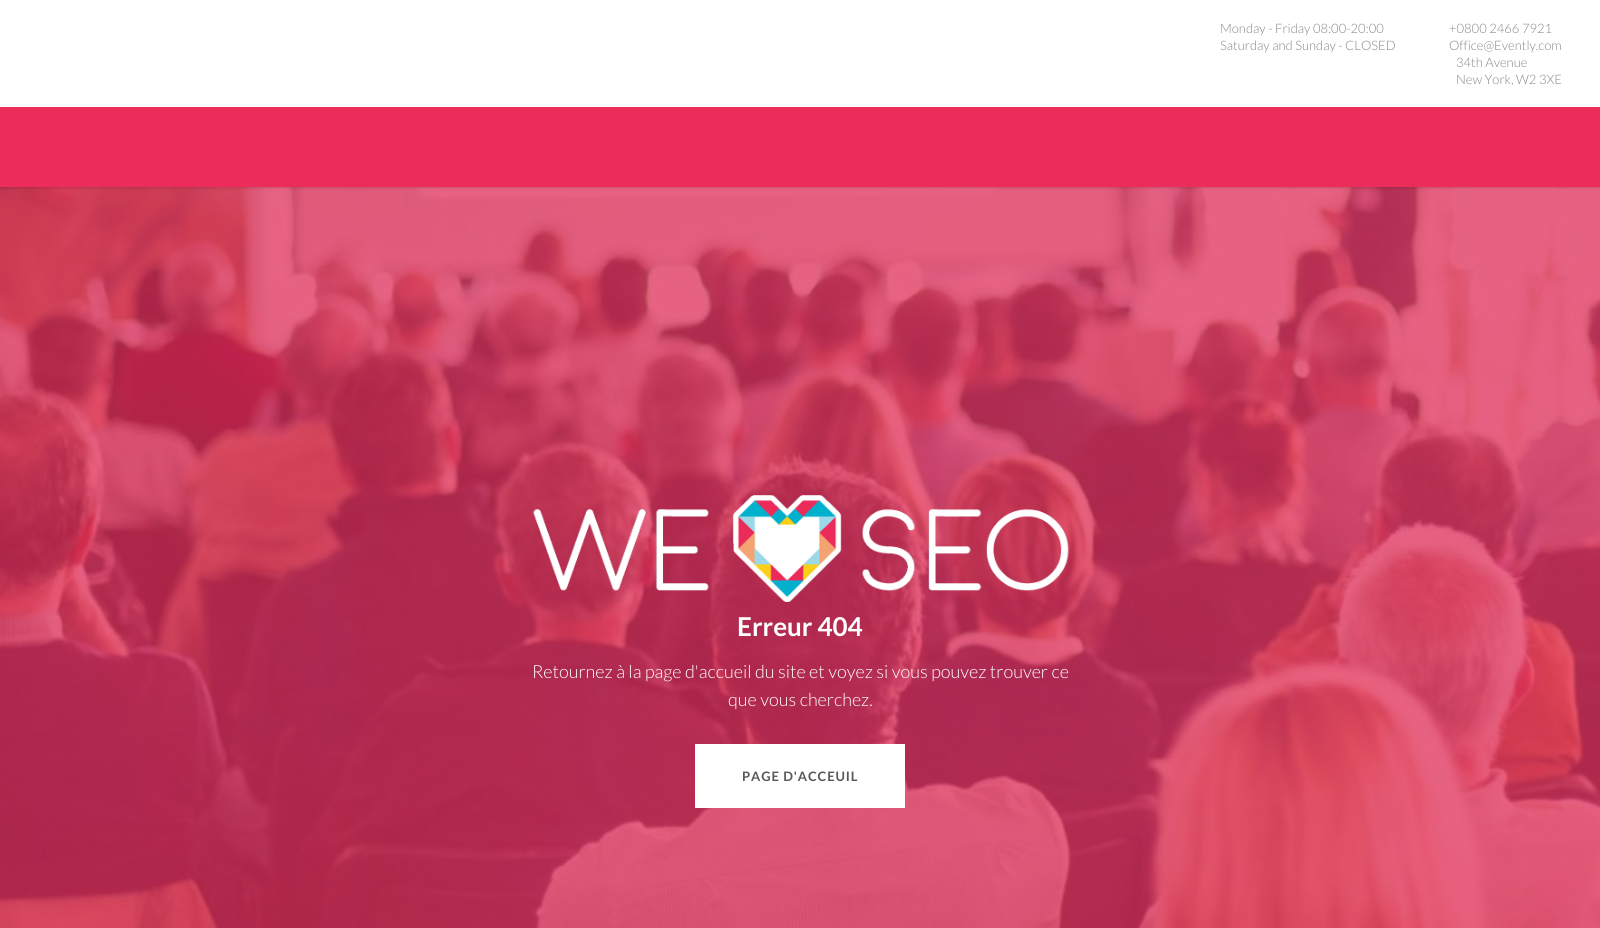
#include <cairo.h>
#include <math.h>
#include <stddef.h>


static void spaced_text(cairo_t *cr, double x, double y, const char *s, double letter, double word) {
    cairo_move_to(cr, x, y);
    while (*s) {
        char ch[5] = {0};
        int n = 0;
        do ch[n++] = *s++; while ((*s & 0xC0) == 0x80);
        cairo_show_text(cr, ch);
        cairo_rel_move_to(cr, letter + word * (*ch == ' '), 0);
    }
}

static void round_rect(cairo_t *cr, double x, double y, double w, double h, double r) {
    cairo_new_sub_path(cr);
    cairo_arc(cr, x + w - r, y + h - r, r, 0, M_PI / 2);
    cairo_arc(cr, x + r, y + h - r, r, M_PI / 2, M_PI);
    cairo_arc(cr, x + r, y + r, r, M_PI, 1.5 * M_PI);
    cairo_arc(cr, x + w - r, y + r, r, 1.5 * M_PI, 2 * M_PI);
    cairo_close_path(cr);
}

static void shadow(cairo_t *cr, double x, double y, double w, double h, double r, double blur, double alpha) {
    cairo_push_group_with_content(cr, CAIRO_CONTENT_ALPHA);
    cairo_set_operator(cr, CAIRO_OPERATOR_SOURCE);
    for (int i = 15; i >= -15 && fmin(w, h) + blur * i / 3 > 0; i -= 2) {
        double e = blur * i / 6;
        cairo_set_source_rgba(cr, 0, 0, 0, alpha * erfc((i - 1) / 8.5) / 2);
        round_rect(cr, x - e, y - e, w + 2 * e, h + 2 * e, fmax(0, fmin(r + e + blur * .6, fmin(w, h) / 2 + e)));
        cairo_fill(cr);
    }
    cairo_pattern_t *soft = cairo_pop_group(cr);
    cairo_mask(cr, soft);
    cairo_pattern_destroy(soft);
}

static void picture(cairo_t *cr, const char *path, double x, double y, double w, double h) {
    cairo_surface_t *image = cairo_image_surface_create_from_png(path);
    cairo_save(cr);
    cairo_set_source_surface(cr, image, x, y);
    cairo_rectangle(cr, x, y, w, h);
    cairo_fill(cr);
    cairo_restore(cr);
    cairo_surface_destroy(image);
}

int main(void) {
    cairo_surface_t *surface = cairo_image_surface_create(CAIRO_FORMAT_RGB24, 1600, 928);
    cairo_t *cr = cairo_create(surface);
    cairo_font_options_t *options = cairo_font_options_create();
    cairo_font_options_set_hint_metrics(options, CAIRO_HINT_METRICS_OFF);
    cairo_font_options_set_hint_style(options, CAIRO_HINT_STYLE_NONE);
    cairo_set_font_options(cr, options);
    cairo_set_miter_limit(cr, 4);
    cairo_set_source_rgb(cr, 1, 1, 1);
    cairo_paint(cr);
    picture(cr, "img1.png", 0, 187, 1600, 741);
    cairo_set_source_rgb(cr, 0, 0, 0);
    shadow(cr, 0, 108, 1600, 80, 0, 1.5, 0.15);
    cairo_set_source_rgb(cr, 1, 1, 1);
    cairo_rectangle(cr, 0, 106, 1600, 1);
    cairo_fill(cr);
    cairo_select_font_face(cr, "Lato Light", CAIRO_FONT_SLANT_NORMAL, CAIRO_FONT_WEIGHT_NORMAL);
    cairo_set_font_size(cr, 13);
    cairo_set_source_rgb(cr, 0.525, 0.525, 0.525);
    cairo_move_to(cr, 1220, 33);
    cairo_show_text(cr, "Monday - Friday 08:00-20:00");
    cairo_move_to(cr, 1220, 50);
    cairo_show_text(cr, "Saturday and Sunday - CLOSED");
    cairo_move_to(cr, 1449, 33);
    cairo_show_text(cr, "+0800 2466 7921");
    cairo_move_to(cr, 1449, 50);
    cairo_show_text(cr, "Office@Evently.com");
    cairo_move_to(cr, 1456, 67);
    cairo_show_text(cr, "34th Avenue");
    cairo_move_to(cr, 1456, 84);
    cairo_show_text(cr, "New York, W2 3XE");
    cairo_set_source_rgb(cr, 0.922, 0.173, 0.353);
    cairo_rectangle(cr, 0, 107, 1600, 80);
    cairo_fill(cr);
    picture(cr, "img2.png", 533, 495, 536, 107);
    cairo_select_font_face(cr, "Lato", CAIRO_FONT_SLANT_NORMAL, CAIRO_FONT_WEIGHT_BOLD);
    cairo_set_font_size(cr, 26);
    cairo_set_source_rgb(cr, 1, 1, 1);
    cairo_move_to(cr, 737, 636);
    cairo_show_text(cr, "Erreur 404");
    cairo_select_font_face(cr, "Lato Light", CAIRO_FONT_SLANT_NORMAL, CAIRO_FONT_WEIGHT_NORMAL);
    cairo_set_font_size(cr, 18);
    cairo_move_to(cr, 532, 678);
    cairo_show_text(cr, "Retournez à la page d'accueil du site et voyez si vous pouvez trouver ce");
    cairo_move_to(cr, 728, 706);
    cairo_show_text(cr, "que vous cherchez.");
    cairo_rectangle(cr, 695, 744, 210, 64);
    cairo_fill(cr);
    cairo_select_font_face(cr, "Lato", CAIRO_FONT_SLANT_NORMAL, CAIRO_FONT_WEIGHT_BOLD);
    cairo_set_font_size(cr, 13);
    cairo_set_source_rgb(cr, 0.345, 0.345, 0.345);
    spaced_text(cr, 742, 781, "PAGE D'ACCEUIL", 0.9, 0);
    cairo_surface_write_to_png(surface, "page.png");
    cairo_font_options_destroy(options);
    cairo_destroy(cr);
    cairo_surface_destroy(surface);
    return 0;
}
